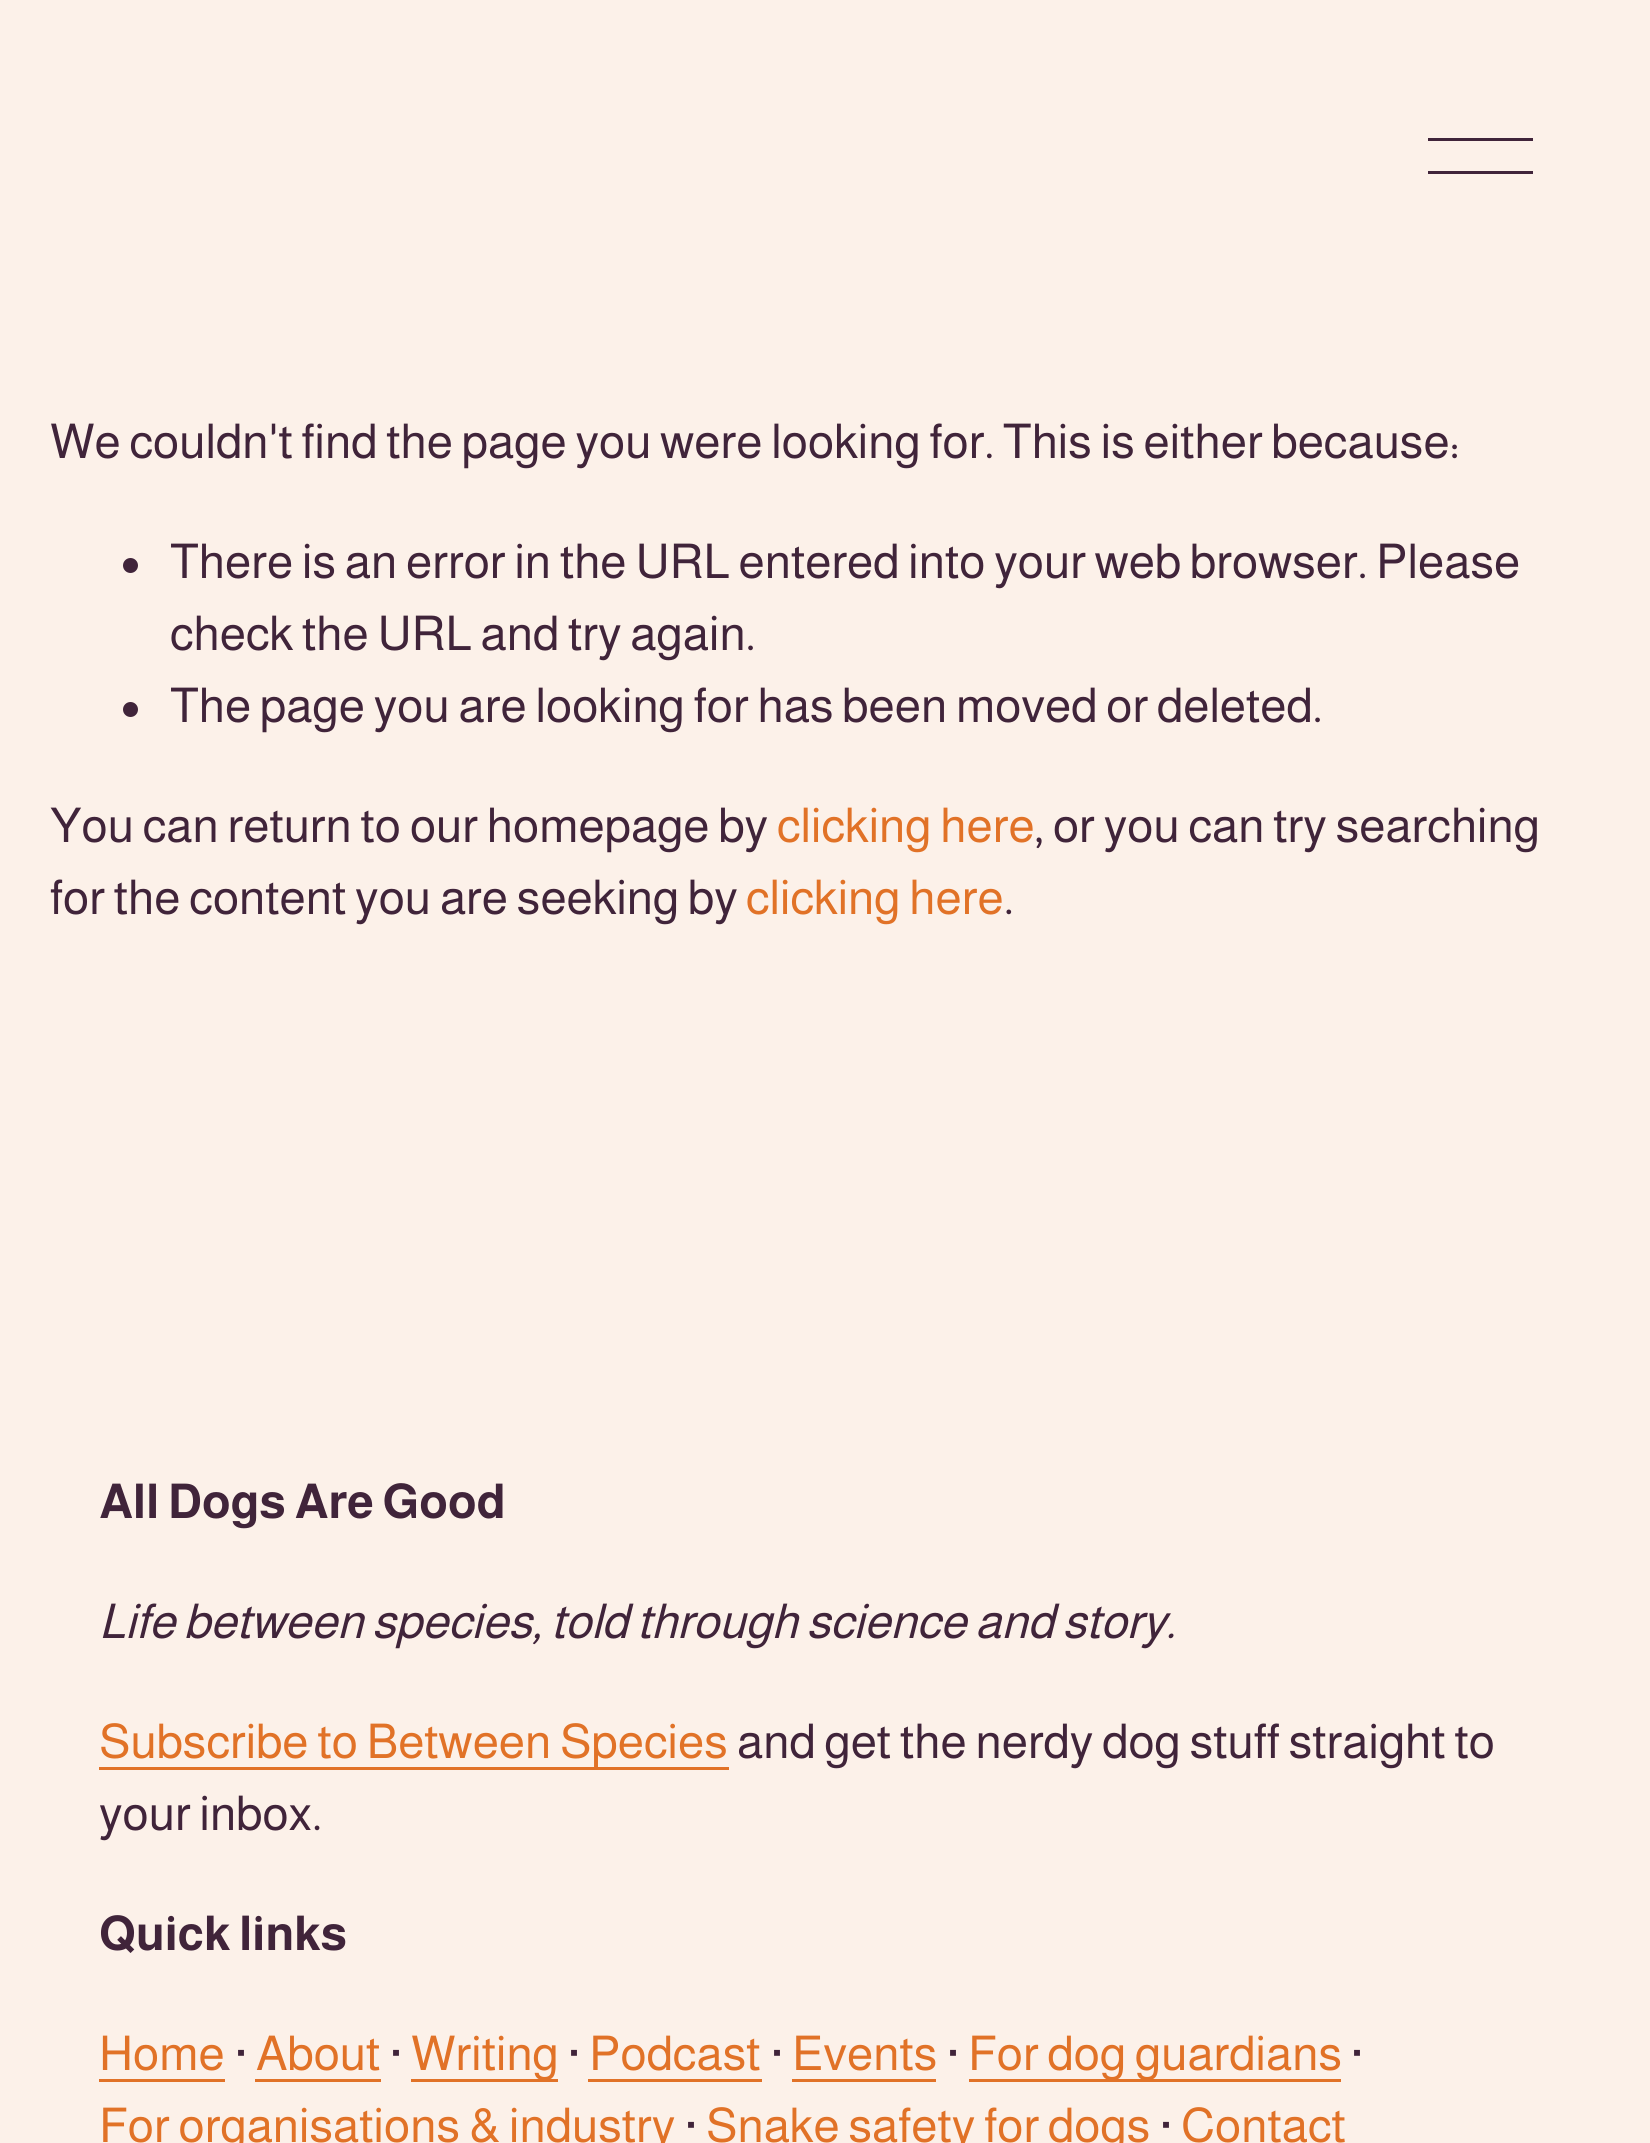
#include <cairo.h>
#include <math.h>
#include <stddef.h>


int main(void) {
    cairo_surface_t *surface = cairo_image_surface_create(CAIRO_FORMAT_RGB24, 1650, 2143);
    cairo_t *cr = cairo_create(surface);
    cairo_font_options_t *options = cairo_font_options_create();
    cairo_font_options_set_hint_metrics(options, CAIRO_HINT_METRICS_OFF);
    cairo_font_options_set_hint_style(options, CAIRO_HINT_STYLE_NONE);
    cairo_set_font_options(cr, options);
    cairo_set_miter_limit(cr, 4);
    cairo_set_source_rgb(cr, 0.988, 0.945, 0.914);
    cairo_paint(cr);
    cairo_set_source_rgb(cr, 0.251, 0.141, 0.227);
    cairo_rectangle(cr, 1428, 138, 105, 3);
    cairo_fill(cr);
    cairo_rectangle(cr, 1428, 171, 105, 3);
    cairo_fill(cr);
    cairo_select_font_face(cr, "Almarai", CAIRO_FONT_SLANT_NORMAL, CAIRO_FONT_WEIGHT_NORMAL);
    cairo_set_font_size(cr, 48);
    cairo_move_to(cr, 50, 458);
    cairo_show_text(cr, "We couldn't find the page you were looking for. This is either because:");
    cairo_new_path(cr);
    cairo_arc(cr, 130.5, 565.5, 7.5, 0, 2 * M_PI);
    cairo_fill(cr);
    cairo_move_to(cr, 170, 578);
    cairo_show_text(cr, "There is an error in the URL entered into your web browser. Please");
    cairo_move_to(cr, 170, 650);
    cairo_show_text(cr, "check the URL and try again.");
    cairo_new_path(cr);
    cairo_arc(cr, 130.5, 709.5, 7.5, 0, 2 * M_PI);
    cairo_fill(cr);
    cairo_move_to(cr, 170, 722);
    cairo_show_text(cr, "The page you are looking for has been moved or deleted.");
    cairo_move_to(cr, 50, 842);
    cairo_show_text(cr, "You can return to our homepage by");
    cairo_set_source_rgb(cr, 0.882, 0.447, 0.153);
    cairo_move_to(cr, 777, 842);
    cairo_show_text(cr, "clicking here");
    cairo_set_source_rgb(cr, 0.251, 0.141, 0.227);
    cairo_move_to(cr, 1034, 842);
    cairo_show_text(cr, ", or you can try searching");
    cairo_move_to(cr, 50, 914);
    cairo_show_text(cr, "for the content you are seeking by");
    cairo_set_source_rgb(cr, 0.882, 0.447, 0.153);
    cairo_move_to(cr, 746, 914);
    cairo_show_text(cr, "clicking here");
    cairo_set_source_rgb(cr, 0.251, 0.141, 0.227);
    cairo_move_to(cr, 1004, 914);
    cairo_show_text(cr, ".");
    cairo_select_font_face(cr, "Almarai", CAIRO_FONT_SLANT_NORMAL, CAIRO_FONT_WEIGHT_BOLD);
    cairo_move_to(cr, 99, 1518);
    cairo_show_text(cr, "All Dogs Are Good");
    cairo_select_font_face(cr, "Almarai", CAIRO_FONT_SLANT_ITALIC, CAIRO_FONT_WEIGHT_NORMAL);
    cairo_move_to(cr, 99, 1638);
    cairo_show_text(cr, "Life between species, told through science and story.");
    cairo_set_source_rgb(cr, 0.882, 0.447, 0.153);
    cairo_rectangle(cr, 99, 1767, 630, 3);
    cairo_fill(cr);
    cairo_select_font_face(cr, "Almarai", CAIRO_FONT_SLANT_NORMAL, CAIRO_FONT_WEIGHT_NORMAL);
    cairo_move_to(cr, 99, 1758);
    cairo_show_text(cr, "Subscribe to Between Species");
    cairo_set_source_rgb(cr, 0.251, 0.141, 0.227);
    cairo_move_to(cr, 737, 1758);
    cairo_show_text(cr, "and get the nerdy dog stuff straight to");
    cairo_move_to(cr, 99, 1830);
    cairo_show_text(cr, "your inbox.");
    cairo_select_font_face(cr, "Almarai", CAIRO_FONT_SLANT_NORMAL, CAIRO_FONT_WEIGHT_BOLD);
    cairo_move_to(cr, 99, 1950);
    cairo_show_text(cr, "Quick links");
    cairo_select_font_face(cr, "Almarai", CAIRO_FONT_SLANT_NORMAL, CAIRO_FONT_WEIGHT_NORMAL);
    cairo_set_source_rgb(cr, 0.882, 0.447, 0.153);
    cairo_move_to(cr, 99, 2070);
    cairo_show_text(cr, "Home");
    cairo_rectangle(cr, 99, 2079, 126, 3);
    cairo_fill(cr);
    cairo_set_source_rgb(cr, 0.251, 0.141, 0.227);
    cairo_move_to(cr, 234, 2070);
    cairo_show_text(cr, "·");
    cairo_set_source_rgb(cr, 0.882, 0.447, 0.153);
    cairo_move_to(cr, 256, 2070);
    cairo_show_text(cr, "About");
    cairo_rectangle(cr, 255, 2079, 126, 3);
    cairo_fill(cr);
    cairo_set_source_rgb(cr, 0.251, 0.141, 0.227);
    cairo_move_to(cr, 389, 2070);
    cairo_show_text(cr, "·");
    cairo_set_source_rgb(cr, 0.882, 0.447, 0.153);
    cairo_rectangle(cr, 411, 2079, 147, 3);
    cairo_fill(cr);
    cairo_move_to(cr, 411, 2070);
    cairo_show_text(cr, "Writing");
    cairo_set_source_rgb(cr, 0.251, 0.141, 0.227);
    cairo_move_to(cr, 567, 2070);
    cairo_show_text(cr, "·");
    cairo_set_source_rgb(cr, 0.882, 0.447, 0.153);
    cairo_move_to(cr, 589, 2070);
    cairo_show_text(cr, "Podcast");
    cairo_rectangle(cr, 588, 2079, 174, 3);
    cairo_fill(cr);
    cairo_set_source_rgb(cr, 0.251, 0.141, 0.227);
    cairo_move_to(cr, 770, 2070);
    cairo_show_text(cr, "·");
    cairo_set_source_rgb(cr, 0.882, 0.447, 0.153);
    cairo_move_to(cr, 792, 2070);
    cairo_show_text(cr, "Events");
    cairo_rectangle(cr, 792, 2079, 144, 3);
    cairo_fill(cr);
    cairo_set_source_rgb(cr, 0.251, 0.141, 0.227);
    cairo_move_to(cr, 946, 2070);
    cairo_show_text(cr, "·");
    cairo_set_source_rgb(cr, 0.882, 0.447, 0.153);
    cairo_rectangle(cr, 969, 2079, 372, 3);
    cairo_fill(cr);
    cairo_move_to(cr, 968, 2070);
    cairo_show_text(cr, "For dog guardians");
    cairo_set_source_rgb(cr, 0.251, 0.141, 0.227);
    cairo_move_to(cr, 1350, 2070);
    cairo_show_text(cr, "·");
    cairo_set_source_rgb(cr, 0.882, 0.447, 0.153);
    cairo_move_to(cr, 99, 2142);
    cairo_show_text(cr, "For organisations & industry");
    cairo_set_source_rgb(cr, 0.251, 0.141, 0.227);
    cairo_move_to(cr, 684, 2142);
    cairo_show_text(cr, "·");
    cairo_set_source_rgb(cr, 0.882, 0.447, 0.153);
    cairo_move_to(cr, 706, 2142);
    cairo_show_text(cr, "Snake safety for dogs");
    cairo_set_source_rgb(cr, 0.251, 0.141, 0.227);
    cairo_move_to(cr, 1159, 2142);
    cairo_show_text(cr, "·");
    cairo_set_source_rgb(cr, 0.882, 0.447, 0.153);
    cairo_move_to(cr, 1181, 2142);
    cairo_show_text(cr, "Contact");
    cairo_surface_write_to_png(surface, "page.png");
    cairo_font_options_destroy(options);
    cairo_destroy(cr);
    cairo_surface_destroy(surface);
    return 0;
}
